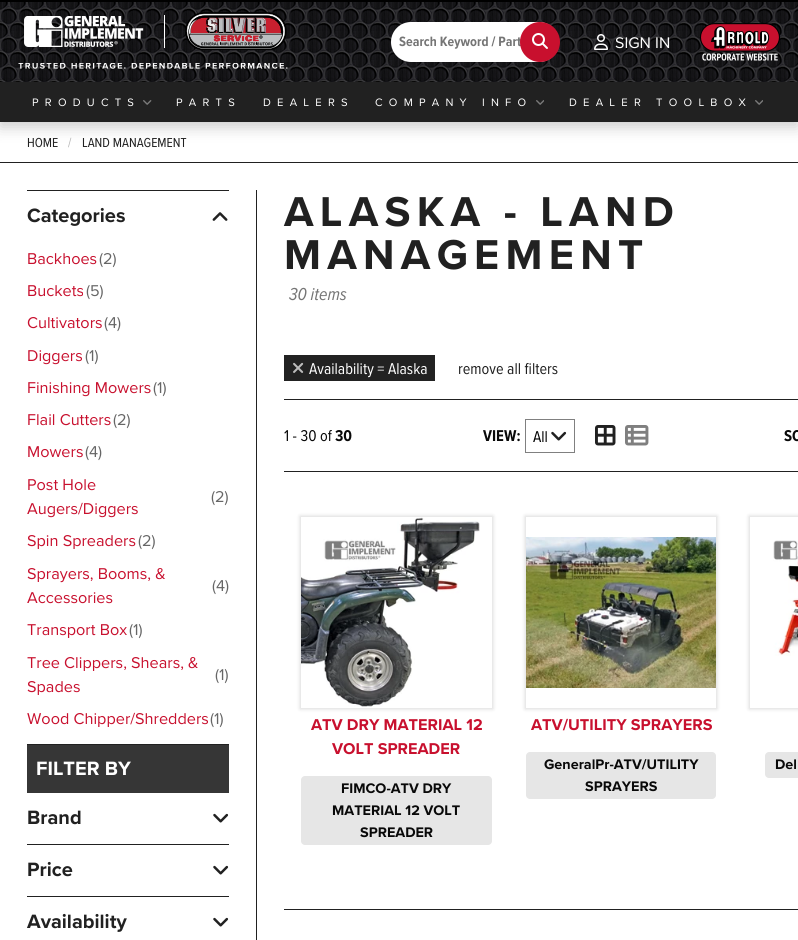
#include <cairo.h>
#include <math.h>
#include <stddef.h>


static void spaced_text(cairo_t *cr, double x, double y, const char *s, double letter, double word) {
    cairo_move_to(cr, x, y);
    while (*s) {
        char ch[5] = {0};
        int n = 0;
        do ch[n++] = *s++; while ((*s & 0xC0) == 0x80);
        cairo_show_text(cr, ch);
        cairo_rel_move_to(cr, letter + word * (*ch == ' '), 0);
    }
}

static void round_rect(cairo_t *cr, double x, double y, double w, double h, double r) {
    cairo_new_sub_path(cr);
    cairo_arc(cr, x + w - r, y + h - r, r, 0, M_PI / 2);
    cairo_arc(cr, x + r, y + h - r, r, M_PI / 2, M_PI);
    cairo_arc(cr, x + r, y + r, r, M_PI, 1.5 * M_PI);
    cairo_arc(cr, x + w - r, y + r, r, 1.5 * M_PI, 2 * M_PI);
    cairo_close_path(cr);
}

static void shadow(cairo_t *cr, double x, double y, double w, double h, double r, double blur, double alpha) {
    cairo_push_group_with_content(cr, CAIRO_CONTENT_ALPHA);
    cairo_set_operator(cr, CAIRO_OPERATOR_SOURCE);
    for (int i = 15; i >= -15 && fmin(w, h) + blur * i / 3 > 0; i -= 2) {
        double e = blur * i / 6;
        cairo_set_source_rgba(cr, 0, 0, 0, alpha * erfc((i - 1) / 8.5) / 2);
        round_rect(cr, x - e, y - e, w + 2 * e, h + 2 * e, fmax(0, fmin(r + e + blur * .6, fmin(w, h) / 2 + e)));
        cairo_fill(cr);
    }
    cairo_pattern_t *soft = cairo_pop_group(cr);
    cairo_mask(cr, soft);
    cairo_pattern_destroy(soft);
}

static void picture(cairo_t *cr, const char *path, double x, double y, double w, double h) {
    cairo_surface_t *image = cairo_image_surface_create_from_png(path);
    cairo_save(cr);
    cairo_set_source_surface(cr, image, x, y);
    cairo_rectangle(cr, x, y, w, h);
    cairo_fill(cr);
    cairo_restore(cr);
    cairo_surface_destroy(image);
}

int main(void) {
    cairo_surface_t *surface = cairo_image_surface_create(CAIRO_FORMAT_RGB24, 798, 940);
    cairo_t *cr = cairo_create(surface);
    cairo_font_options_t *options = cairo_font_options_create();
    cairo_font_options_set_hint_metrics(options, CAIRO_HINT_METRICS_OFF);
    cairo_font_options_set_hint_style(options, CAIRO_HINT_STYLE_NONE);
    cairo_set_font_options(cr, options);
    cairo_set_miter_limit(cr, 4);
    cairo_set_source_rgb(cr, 1, 1, 1);
    cairo_paint(cr);
    cairo_set_source_rgb(cr, 0, 0, 0);
    cairo_rectangle(cr, 0, 0, 798, 2);
    cairo_fill(cr);
    picture(cr, "img1.png", 0, 2, 798, 80);
    picture(cr, "img2.png", 24, 12, 263, 38);
    picture(cr, "img3.png", 18, 63, 270, 6);
    cairo_set_source_rgb(cr, 1, 1, 1);
    round_rect(cr, 391, 22, 168, 40, 20);
    cairo_fill(cr);
    cairo_select_font_face(cr, "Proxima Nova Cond", CAIRO_FONT_SLANT_NORMAL, CAIRO_FONT_WEIGHT_BOLD);
    cairo_set_font_size(cr, 14);
    cairo_set_source_rgb(cr, 0.459, 0.459, 0.459);
    cairo_move_to(cr, 399, 46);
    cairo_show_text(cr, "Search Keyword / Part");
    cairo_set_source_rgb(cr, 0.784, 0.063, 0.18);
    cairo_new_path(cr);
    cairo_arc(cr, 540, 42, 20, 0, 2 * M_PI);
    cairo_fill(cr);
    picture(cr, "img4.png", 532, 33, 16, 16);
    picture(cr, "img5.png", 594, 34, 14, 16);
    cairo_select_font_face(cr, "Proxima Nova", CAIRO_FONT_SLANT_NORMAL, CAIRO_FONT_WEIGHT_NORMAL);
    cairo_set_font_size(cr, 16);
    cairo_set_source_rgb(cr, 1, 1, 1);
    cairo_move_to(cr, 615, 48);
    cairo_show_text(cr, "SIGN IN");
    picture(cr, "img6.png", 700, 23, 80, 38);
    cairo_set_source_rgb(cr, 0, 0, 0);
    shadow(cr, 0, 87, 798, 40, 0, 7.5, 0.2);
    cairo_set_source_rgb(cr, 0.129, 0.129, 0.129);
    cairo_rectangle(cr, 0, 82, 798, 40);
    cairo_fill(cr);
    cairo_set_font_size(cr, 11.2);
    cairo_set_source_rgb(cr, 1, 1, 1);
    spaced_text(cr, 32, 106, "PRODUCTS", 6.25, 0);
    picture(cr, "img7.png", 143, 100, 9, 5);
    spaced_text(cr, 176, 106, "PARTS", 6.25, 0);
    spaced_text(cr, 263, 106, "DEALERS", 6.25, 0);
    spaced_text(cr, 375, 106, "COMPANY INFO", 6.25, 0);
    picture(cr, "img8.png", 536, 100, 8, 5);
    spaced_text(cr, 569, 106, "DEALER TOOLBOX", 6.25, 0);
    picture(cr, "img8.png", 755, 100, 8, 5);
    cairo_set_source_rgb(cr, 0.129, 0.129, 0.129);
    cairo_rectangle(cr, 0, 162, 798, 1);
    cairo_fill(cr);
    cairo_select_font_face(cr, "Proxima Nova Cond", CAIRO_FONT_SLANT_NORMAL, CAIRO_FONT_WEIGHT_NORMAL);
    cairo_set_font_size(cr, 13.5);
    cairo_move_to(cr, 27, 147);
    cairo_show_text(cr, "HOME");
    cairo_set_source_rgb(cr, 0.71, 0.71, 0.71);
    cairo_move_to(cr, 68, 147);
    cairo_show_text(cr, "/");
    cairo_set_source_rgb(cr, 0.129, 0.129, 0.129);
    cairo_move_to(cr, 82, 147);
    cairo_show_text(cr, "LAND MANAGEMENT");
    cairo_rectangle(cr, 256, 190, 1, 750);
    cairo_fill(cr);
    cairo_rectangle(cr, 27, 190, 202, 1);
    cairo_fill(cr);
    cairo_rectangle(cr, 27, 744, 202, 1);
    cairo_fill(cr);
    cairo_select_font_face(cr, "Proxima Nova", CAIRO_FONT_SLANT_NORMAL, CAIRO_FONT_WEIGHT_BOLD);
    cairo_set_font_size(cr, 20);
    cairo_move_to(cr, 27, 222);
    cairo_show_text(cr, "Categories");
    picture(cr, "img9.png", 212, 212, 16, 9);
    cairo_select_font_face(cr, "Proxima Nova", CAIRO_FONT_SLANT_NORMAL, CAIRO_FONT_WEIGHT_NORMAL);
    cairo_set_font_size(cr, 16.25);
    cairo_set_source_rgb(cr, 0.784, 0.063, 0.18);
    cairo_move_to(cr, 27, 264);
    cairo_show_text(cr, "Backhoes");
    cairo_set_source_rgb(cr, 0.4, 0.4, 0.4);
    cairo_move_to(cr, 99, 264);
    cairo_show_text(cr, "(2)");
    cairo_set_source_rgb(cr, 0.784, 0.063, 0.18);
    cairo_move_to(cr, 27, 296);
    cairo_show_text(cr, "Buckets");
    cairo_set_source_rgb(cr, 0.4, 0.4, 0.4);
    cairo_move_to(cr, 86, 296);
    cairo_show_text(cr, "(5)");
    cairo_set_source_rgb(cr, 0.784, 0.063, 0.18);
    cairo_move_to(cr, 27, 328);
    cairo_show_text(cr, "Cultivators");
    cairo_set_source_rgb(cr, 0.4, 0.4, 0.4);
    cairo_move_to(cr, 104, 328);
    cairo_show_text(cr, "(4)");
    cairo_set_source_rgb(cr, 0.784, 0.063, 0.18);
    cairo_move_to(cr, 27, 361);
    cairo_show_text(cr, "Diggers");
    cairo_set_source_rgb(cr, 0.4, 0.4, 0.4);
    cairo_move_to(cr, 85, 361);
    cairo_show_text(cr, "(1)");
    cairo_set_source_rgb(cr, 0.784, 0.063, 0.18);
    cairo_move_to(cr, 27, 393);
    cairo_show_text(cr, "Finishing Mowers");
    cairo_set_source_rgb(cr, 0.4, 0.4, 0.4);
    cairo_move_to(cr, 153, 393);
    cairo_show_text(cr, "(1)");
    cairo_set_source_rgb(cr, 0.784, 0.063, 0.18);
    cairo_move_to(cr, 27, 425);
    cairo_show_text(cr, "Flail Cutters");
    cairo_set_source_rgb(cr, 0.4, 0.4, 0.4);
    cairo_move_to(cr, 113, 425);
    cairo_show_text(cr, "(2)");
    cairo_set_source_rgb(cr, 0.784, 0.063, 0.18);
    cairo_move_to(cr, 27, 457);
    cairo_show_text(cr, "Mowers");
    cairo_set_source_rgb(cr, 0.4, 0.4, 0.4);
    cairo_move_to(cr, 85, 457);
    cairo_show_text(cr, "(4)");
    cairo_set_source_rgb(cr, 0.784, 0.063, 0.18);
    cairo_move_to(cr, 27, 490);
    cairo_show_text(cr, "Post Hole");
    cairo_set_source_rgb(cr, 0.4, 0.4, 0.4);
    cairo_move_to(cr, 211, 502);
    cairo_show_text(cr, "(2)");
    cairo_set_source_rgb(cr, 0.784, 0.063, 0.18);
    cairo_move_to(cr, 27, 514);
    cairo_show_text(cr, "Augers/Diggers");
    cairo_move_to(cr, 27, 546);
    cairo_show_text(cr, "Spin Spreaders");
    cairo_set_source_rgb(cr, 0.4, 0.4, 0.4);
    cairo_move_to(cr, 138, 546);
    cairo_show_text(cr, "(2)");
    cairo_set_source_rgb(cr, 0.784, 0.063, 0.18);
    cairo_move_to(cr, 27, 579);
    cairo_show_text(cr, "Sprayers, Booms, &");
    cairo_set_source_rgb(cr, 0.4, 0.4, 0.4);
    cairo_move_to(cr, 212, 591);
    cairo_show_text(cr, "(4)");
    cairo_set_source_rgb(cr, 0.784, 0.063, 0.18);
    cairo_move_to(cr, 27, 603);
    cairo_show_text(cr, "Accessories");
    cairo_move_to(cr, 27, 635);
    cairo_show_text(cr, "Transport Box");
    cairo_set_source_rgb(cr, 0.4, 0.4, 0.4);
    cairo_move_to(cr, 129, 635);
    cairo_show_text(cr, "(1)");
    cairo_set_source_rgb(cr, 0.784, 0.063, 0.18);
    cairo_move_to(cr, 27, 668);
    cairo_show_text(cr, "Tree Clippers, Shears, &");
    cairo_set_source_rgb(cr, 0.4, 0.4, 0.4);
    cairo_move_to(cr, 215, 680);
    cairo_show_text(cr, "(1)");
    cairo_set_source_rgb(cr, 0.784, 0.063, 0.18);
    cairo_move_to(cr, 27, 692);
    cairo_show_text(cr, "Spades");
    cairo_move_to(cr, 27, 724);
    cairo_show_text(cr, "Wood Chipper/Shredders");
    cairo_set_source_rgb(cr, 0.4, 0.4, 0.4);
    cairo_move_to(cr, 210, 724);
    cairo_show_text(cr, "(1)");
    cairo_set_source_rgb(cr, 0.212, 0.212, 0.212);
    cairo_rectangle(cr, 27, 745, 202, 48);
    cairo_fill(cr);
    cairo_select_font_face(cr, "Proxima Nova", CAIRO_FONT_SLANT_NORMAL, CAIRO_FONT_WEIGHT_BOLD);
    cairo_set_font_size(cr, 20);
    cairo_set_source_rgb(cr, 1, 1, 1);
    cairo_move_to(cr, 36, 775);
    cairo_show_text(cr, "FILTER BY");
    cairo_set_source_rgb(cr, 0.129, 0.129, 0.129);
    cairo_move_to(cr, 27, 824);
    cairo_show_text(cr, "Brand");
    picture(cr, "img10.png", 213, 813, 16, 10);
    cairo_rectangle(cr, 27, 844, 202, 1);
    cairo_fill(cr);
    cairo_move_to(cr, 27, 876);
    cairo_show_text(cr, "Price");
    picture(cr, "img10.png", 213, 865, 16, 10);
    cairo_rectangle(cr, 27, 896, 202, 1);
    cairo_fill(cr);
    cairo_move_to(cr, 27, 928);
    cairo_show_text(cr, "Availability");
    picture(cr, "img10.png", 213, 917, 16, 10);
    cairo_rectangle(cr, 284, 399, 514, 1);
    cairo_fill(cr);
    cairo_set_font_size(cr, 43.25);
    spaced_text(cr, 284, 226, "ALASKA - LAND", 6.25, 0);
    spaced_text(cr, 284, 269, "MANAGEMENT", 6.25, 0);
    cairo_select_font_face(cr, "Proxima Nova Cond", CAIRO_FONT_SLANT_ITALIC, CAIRO_FONT_WEIGHT_NORMAL);
    cairo_set_font_size(cr, 18);
    cairo_set_source_rgb(cr, 0.459, 0.459, 0.459);
    cairo_move_to(cr, 289, 300);
    cairo_show_text(cr, "30 items");
    cairo_set_source_rgb(cr, 0.133, 0.133, 0.133);
    cairo_rectangle(cr, 284, 355, 151, 26);
    cairo_fill(cr);
    picture(cr, "img11.png", 293, 362, 11, 11);
    cairo_select_font_face(cr, "Proxima Nova Cond", CAIRO_FONT_SLANT_NORMAL, CAIRO_FONT_WEIGHT_NORMAL);
    cairo_set_font_size(cr, 16.25);
    cairo_set_source_rgb(cr, 1, 1, 1);
    cairo_move_to(cr, 309, 374);
    cairo_show_text(cr, "Availability = Alaska");
    cairo_set_source_rgb(cr, 0.129, 0.129, 0.129);
    cairo_move_to(cr, 458, 374);
    cairo_show_text(cr, "remove all filters");
    cairo_rectangle(cr, 284, 471, 514, 1);
    cairo_fill(cr);
    cairo_set_source_rgb(cr, 0.039, 0.039, 0.039);
    cairo_move_to(cr, 284, 441);
    cairo_show_text(cr, "1 - 30 of");
    cairo_select_font_face(cr, "Proxima Nova Cond", CAIRO_FONT_SLANT_NORMAL, CAIRO_FONT_WEIGHT_BOLD);
    cairo_move_to(cr, 335, 441);
    cairo_show_text(cr, "30");
    cairo_move_to(cr, 483, 441);
    cairo_show_text(cr, "VIEW:");
    picture(cr, "img10.png", 551, 431, 16, 10);
    cairo_rectangle(cr, 525.5, 419.5, 49, 33);
    cairo_set_source_rgb(cr, 0.502, 0.502, 0.502);
    cairo_set_line_width(cr, 1);
    cairo_stroke(cr);
    cairo_select_font_face(cr, "Proxima Nova Cond", CAIRO_FONT_SLANT_NORMAL, CAIRO_FONT_WEIGHT_NORMAL);
    cairo_set_source_rgb(cr, 0, 0, 0);
    cairo_move_to(cr, 533, 442);
    cairo_show_text(cr, "All");
    picture(cr, "img12.png", 595, 425, 21, 21);
    picture(cr, "img13.png", 625, 425, 24, 21);
    cairo_select_font_face(cr, "Proxima Nova Cond", CAIRO_FONT_SLANT_NORMAL, CAIRO_FONT_WEIGHT_BOLD);
    cairo_set_source_rgb(cr, 0.039, 0.039, 0.039);
    cairo_move_to(cr, 784, 441);
    cairo_show_text(cr, "SO");
    cairo_save(cr);
    cairo_set_fill_rule(cr, CAIRO_FILL_RULE_EVEN_ODD);
    cairo_new_path(cr);
    cairo_move_to(cr, 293, 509);
    cairo_line_to(cr, 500, 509);
    cairo_line_to(cr, 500, 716);
    cairo_line_to(cr, 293, 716);
    cairo_close_path(cr);
    cairo_move_to(cr, 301, 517);
    cairo_line_to(cr, 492, 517);
    cairo_line_to(cr, 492, 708);
    cairo_line_to(cr, 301, 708);
    cairo_close_path(cr);
    cairo_clip(cr);
    cairo_set_source_rgb(cr, 0, 0, 0);
    shadow(cr, 300, 516, 193, 193, 0, 2, 0.15);
    cairo_restore(cr);
    picture(cr, "img14.png", 301, 517, 179, 190);
    cairo_select_font_face(cr, "Proxima Nova", CAIRO_FONT_SLANT_NORMAL, CAIRO_FONT_WEIGHT_BOLD);
    cairo_set_source_rgb(cr, 0.784, 0.063, 0.18);
    cairo_move_to(cr, 311, 730);
    cairo_show_text(cr, "ATV DRY MATERIAL 12");
    cairo_move_to(cr, 332, 754);
    cairo_show_text(cr, "VOLT SPREADER");
    cairo_set_source_rgb(cr, 0.902, 0.902, 0.902);
    round_rect(cr, 301, 776, 191, 69, 4);
    cairo_fill(cr);
    cairo_set_font_size(cr, 14.4);
    cairo_set_source_rgb(cr, 0.039, 0.039, 0.039);
    cairo_move_to(cr, 341, 793);
    cairo_show_text(cr, "FIMCO-ATV DRY");
    cairo_move_to(cr, 332, 815);
    cairo_show_text(cr, "MATERIAL 12 VOLT");
    cairo_move_to(cr, 360, 837);
    cairo_show_text(cr, "SPREADER");
    cairo_set_source_rgb(cr, 0.129, 0.129, 0.129);
    cairo_rectangle(cr, 284, 909, 514, 1);
    cairo_fill(cr);
    cairo_save(cr);
    cairo_set_fill_rule(cr, CAIRO_FILL_RULE_EVEN_ODD);
    cairo_new_path(cr);
    cairo_move_to(cr, 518, 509);
    cairo_line_to(cr, 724, 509);
    cairo_line_to(cr, 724, 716);
    cairo_line_to(cr, 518, 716);
    cairo_close_path(cr);
    cairo_move_to(cr, 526, 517);
    cairo_line_to(cr, 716, 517);
    cairo_line_to(cr, 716, 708);
    cairo_line_to(cr, 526, 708);
    cairo_close_path(cr);
    cairo_clip(cr);
    cairo_set_source_rgb(cr, 0, 0, 0);
    shadow(cr, 525, 516, 192, 193, 0, 2, 0.15);
    cairo_restore(cr);
    picture(cr, "img15.png", 526, 537, 190, 151);
    cairo_set_font_size(cr, 16.25);
    cairo_set_source_rgb(cr, 0.784, 0.063, 0.18);
    cairo_move_to(cr, 531, 730);
    cairo_show_text(cr, "ATV/UTILITY SPRAYERS");
    cairo_set_source_rgb(cr, 0.902, 0.902, 0.902);
    round_rect(cr, 526, 752, 190, 47, 4);
    cairo_fill(cr);
    cairo_set_font_size(cr, 14.4);
    cairo_set_source_rgb(cr, 0.039, 0.039, 0.039);
    cairo_move_to(cr, 544, 769);
    cairo_show_text(cr, "GeneralPr-ATV/UTILITY");
    cairo_move_to(cr, 585, 791);
    cairo_show_text(cr, "SPRAYERS");
    cairo_save(cr);
    cairo_set_fill_rule(cr, CAIRO_FILL_RULE_EVEN_ODD);
    cairo_new_path(cr);
    cairo_move_to(cr, 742, 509);
    cairo_line_to(cr, 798, 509);
    cairo_line_to(cr, 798, 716);
    cairo_line_to(cr, 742, 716);
    cairo_close_path(cr);
    cairo_move_to(cr, 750, 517);
    cairo_line_to(cr, 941, 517);
    cairo_line_to(cr, 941, 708);
    cairo_line_to(cr, 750, 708);
    cairo_close_path(cr);
    cairo_clip(cr);
    cairo_set_source_rgb(cr, 0, 0, 0);
    shadow(cr, 749, 516, 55, 193, 0, 2, 0.15);
    cairo_restore(cr);
    picture(cr, "img16.png", 773, 540, 25, 116);
    cairo_set_source_rgb(cr, 0.902, 0.902, 0.902);
    round_rect(cr, 765, 752, 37, 26, 4);
    cairo_fill(cr);
    cairo_set_source_rgb(cr, 0.039, 0.039, 0.039);
    cairo_move_to(cr, 775, 769);
    cairo_show_text(cr, "Del");
    cairo_surface_write_to_png(surface, "page.png");
    cairo_font_options_destroy(options);
    cairo_destroy(cr);
    cairo_surface_destroy(surface);
    return 0;
}
